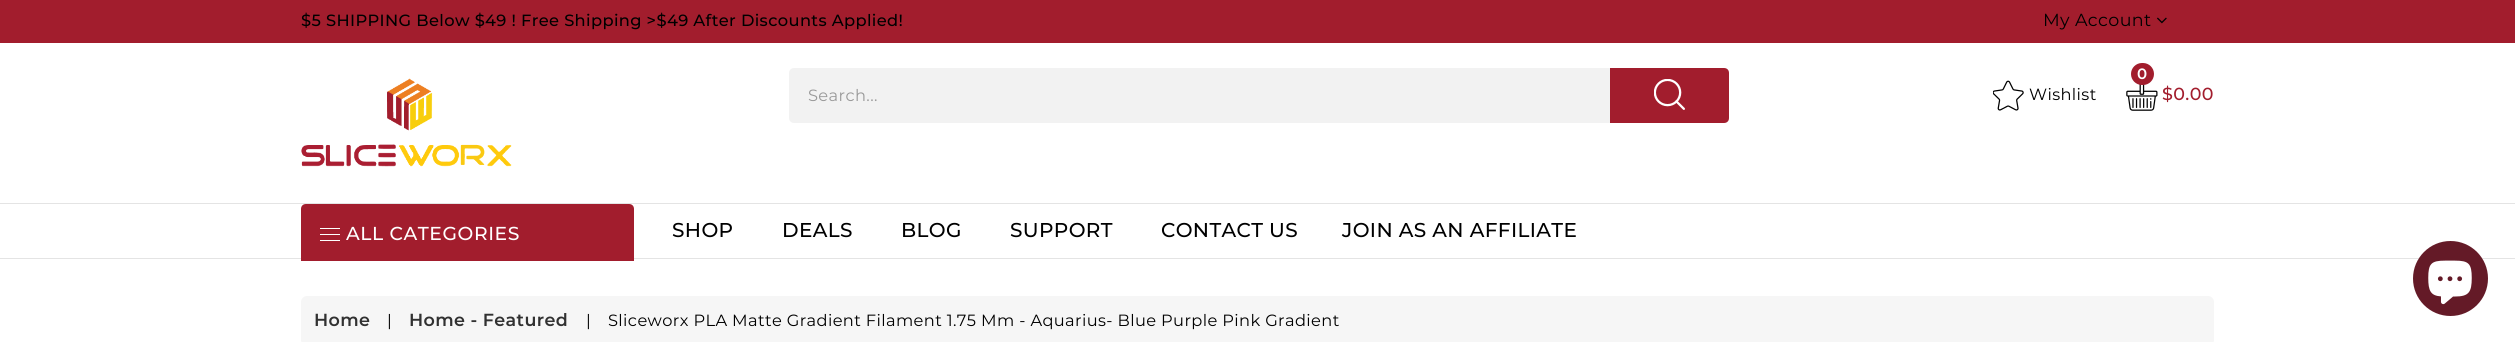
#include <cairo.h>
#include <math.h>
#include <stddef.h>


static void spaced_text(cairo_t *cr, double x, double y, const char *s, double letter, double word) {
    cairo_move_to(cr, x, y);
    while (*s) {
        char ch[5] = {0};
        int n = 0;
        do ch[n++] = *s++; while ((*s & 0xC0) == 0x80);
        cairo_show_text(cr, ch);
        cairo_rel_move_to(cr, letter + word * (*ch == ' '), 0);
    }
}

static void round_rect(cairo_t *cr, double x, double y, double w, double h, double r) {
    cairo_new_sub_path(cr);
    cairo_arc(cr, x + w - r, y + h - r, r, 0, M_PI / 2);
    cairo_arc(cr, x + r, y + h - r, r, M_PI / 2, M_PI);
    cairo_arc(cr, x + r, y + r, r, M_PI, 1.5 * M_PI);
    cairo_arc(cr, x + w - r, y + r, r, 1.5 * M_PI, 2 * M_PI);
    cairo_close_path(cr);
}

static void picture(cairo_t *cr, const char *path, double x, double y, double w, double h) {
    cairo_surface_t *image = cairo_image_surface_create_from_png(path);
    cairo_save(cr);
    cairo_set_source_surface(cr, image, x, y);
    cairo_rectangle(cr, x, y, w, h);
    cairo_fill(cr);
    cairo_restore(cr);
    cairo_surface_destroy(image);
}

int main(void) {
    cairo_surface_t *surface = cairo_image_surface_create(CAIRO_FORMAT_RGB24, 2515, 342);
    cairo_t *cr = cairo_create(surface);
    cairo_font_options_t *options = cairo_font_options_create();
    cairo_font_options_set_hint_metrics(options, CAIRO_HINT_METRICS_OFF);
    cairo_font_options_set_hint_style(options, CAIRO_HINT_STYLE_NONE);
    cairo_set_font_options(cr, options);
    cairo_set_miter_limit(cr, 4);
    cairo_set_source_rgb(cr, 1, 1, 1);
    cairo_paint(cr);
    cairo_set_source_rgb(cr, 0.635, 0.114, 0.176);
    cairo_rectangle(cr, 0, 0, 2515, 43);
    cairo_fill(cr);
    cairo_select_font_face(cr, "Montserrat Medium", CAIRO_FONT_SLANT_NORMAL, CAIRO_FONT_WEIGHT_NORMAL);
    cairo_set_font_size(cr, 16.25);
    cairo_set_source_rgb(cr, 0, 0, 0);
    spaced_text(cr, 301, 26, "$5 SHIPPING Below $49 ! Free Shipping >$49 After Discounts Applied!", 0.38, 0);
    cairo_select_font_face(cr, "Montserrat", CAIRO_FONT_SLANT_NORMAL, CAIRO_FONT_WEIGHT_NORMAL);
    cairo_set_font_size(cr, 17.5);
    spaced_text(cr, 2043, 26, "My Account", 0.38, 0);
    picture(cr, "img1.png", 2157, 17, 10, 7);
    cairo_set_source_rgb(cr, 0.894, 0.894, 0.894);
    cairo_rectangle(cr, 0, 203, 2515, 1);
    cairo_fill(cr);
    picture(cr, "img2.png", 301, 78, 211, 89);
    cairo_set_source_rgb(cr, 0.949, 0.949, 0.949);
    round_rect(cr, 789, 68, 937, 55, 5);
    cairo_fill(cr);
    cairo_set_font_size(cr, 16.25);
    cairo_set_source_rgb(cr, 0.6, 0.6, 0.6);
    spaced_text(cr, 808, 101, "Search...", 0.38, 0);
    cairo_set_source_rgb(cr, 0.635, 0.114, 0.176);
    cairo_new_path(cr);
    cairo_move_to(cr, 1610, 68);
    cairo_line_to(cr, 1724, 68);
    cairo_curve_to(cr, 1727, 68, 1729, 70, 1729, 73);
    cairo_line_to(cr, 1729, 118);
    cairo_curve_to(cr, 1729, 121, 1727, 123, 1724, 123);
    cairo_line_to(cr, 1610, 123);
    cairo_close_path(cr);
    cairo_fill(cr);
    picture(cr, "img3.png", 1654, 79, 31, 31);
    picture(cr, "img4.png", 1993, 80, 31, 31);
    cairo_set_source_rgb(cr, 0, 0, 0);
    spaced_text(cr, 2029, 100, "Wishlist", 0.38, 0);
    picture(cr, "img5.png", 2126, 84, 32, 27);
    cairo_set_source_rgb(cr, 0.635, 0.114, 0.176);
    round_rect(cr, 2131, 63, 23, 22, 11);
    cairo_fill(cr);
    cairo_select_font_face(cr, "Montserrat SemiBold", CAIRO_FONT_SLANT_NORMAL, CAIRO_FONT_WEIGHT_NORMAL);
    cairo_set_font_size(cr, 15);
    cairo_set_source_rgb(cr, 1, 1, 1);
    spaced_text(cr, 2137, 79, "0", 0.38, 0);
    cairo_select_font_face(cr, "Montserrat Medium", CAIRO_FONT_SLANT_NORMAL, CAIRO_FONT_WEIGHT_NORMAL);
    cairo_set_font_size(cr, 17.5);
    cairo_set_source_rgb(cr, 0.635, 0.114, 0.176);
    spaced_text(cr, 2162, 100, "$0.00", 0.38, 0);
    cairo_set_source_rgb(cr, 0.894, 0.894, 0.894);
    cairo_rectangle(cr, 0, 258, 2515, 1);
    cairo_fill(cr);
    cairo_set_source_rgb(cr, 0.635, 0.114, 0.176);
    cairo_new_path(cr);
    cairo_move_to(cr, 306, 204);
    cairo_line_to(cr, 629, 204);
    cairo_curve_to(cr, 632, 204, 634, 206, 634, 209);
    cairo_line_to(cr, 634, 261);
    cairo_line_to(cr, 301, 261);
    cairo_line_to(cr, 301, 209);
    cairo_curve_to(cr, 301, 206, 303, 204, 306, 204);
    cairo_close_path(cr);
    cairo_fill(cr);
    cairo_set_source_rgb(cr, 1, 1, 1);
    cairo_rectangle(cr, 320, 228, 20, 1);
    cairo_fill(cr);
    cairo_rectangle(cr, 320, 234, 20, 1);
    cairo_fill(cr);
    cairo_rectangle(cr, 320, 240, 20, 1);
    cairo_fill(cr);
    cairo_set_font_size(cr, 18.75);
    spaced_text(cr, 346, 240, "ALL CATEGORIES", 0.6, 0);
    cairo_set_font_size(cr, 20);
    cairo_set_source_rgb(cr, 0, 0, 0);
    spaced_text(cr, 672, 237, "SHOP", 0.38, 0);
    spaced_text(cr, 782, 237, "DEALS", 0.38, 0);
    spaced_text(cr, 901, 237, "BLOG", 0.38, 0);
    spaced_text(cr, 1010, 237, "SUPPORT", 0.38, 0);
    spaced_text(cr, 1161, 237, "CONTACT US", 0.38, 0);
    spaced_text(cr, 1342, 237, "JOIN AS AN AFFILIATE", 0.38, 0);
    cairo_set_source_rgb(cr, 0.392, 0.102, 0.153);
    cairo_new_path(cr);
    cairo_arc(cr, 2450.5, 278.5, 37.5, 0, 2 * M_PI);
    cairo_fill(cr);
    picture(cr, "img6.png", 2428, 260, 44, 45);
    cairo_set_source_rgb(cr, 0.961, 0.961, 0.961);
    round_rect(cr, 301, 296, 1913, 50, 6);
    cairo_fill(cr);
    cairo_select_font_face(cr, "Montserrat SemiBold", CAIRO_FONT_SLANT_NORMAL, CAIRO_FONT_WEIGHT_NORMAL);
    cairo_set_font_size(cr, 17.5);
    cairo_set_source_rgb(cr, 0.192, 0.192, 0.192);
    spaced_text(cr, 314, 326, "Home", 0.38, 0);
    cairo_select_font_face(cr, "Montserrat", CAIRO_FONT_SLANT_NORMAL, CAIRO_FONT_WEIGHT_NORMAL);
    cairo_set_font_size(cr, 16.25);
    cairo_set_source_rgb(cr, 0, 0, 0);
    spaced_text(cr, 387, 326, "|", 0.38, 0);
    cairo_select_font_face(cr, "Montserrat SemiBold", CAIRO_FONT_SLANT_NORMAL, CAIRO_FONT_WEIGHT_NORMAL);
    cairo_set_font_size(cr, 17.5);
    cairo_set_source_rgb(cr, 0.192, 0.192, 0.192);
    spaced_text(cr, 409, 326, "Home - Featured", 0.38, 0);
    cairo_select_font_face(cr, "Montserrat", CAIRO_FONT_SLANT_NORMAL, CAIRO_FONT_WEIGHT_NORMAL);
    cairo_set_font_size(cr, 16.25);
    cairo_set_source_rgb(cr, 0, 0, 0);
    spaced_text(cr, 586, 326, "|", 0.38, 0);
    spaced_text(cr, 608, 326, "Sliceworx PLA Matte Gradient Filament 1.75 Mm - Aquarius- Blue Purple Pink Gradient", 0.38, 0);
    cairo_surface_write_to_png(surface, "page.png");
    cairo_font_options_destroy(options);
    cairo_destroy(cr);
    cairo_surface_destroy(surface);
    return 0;
}
